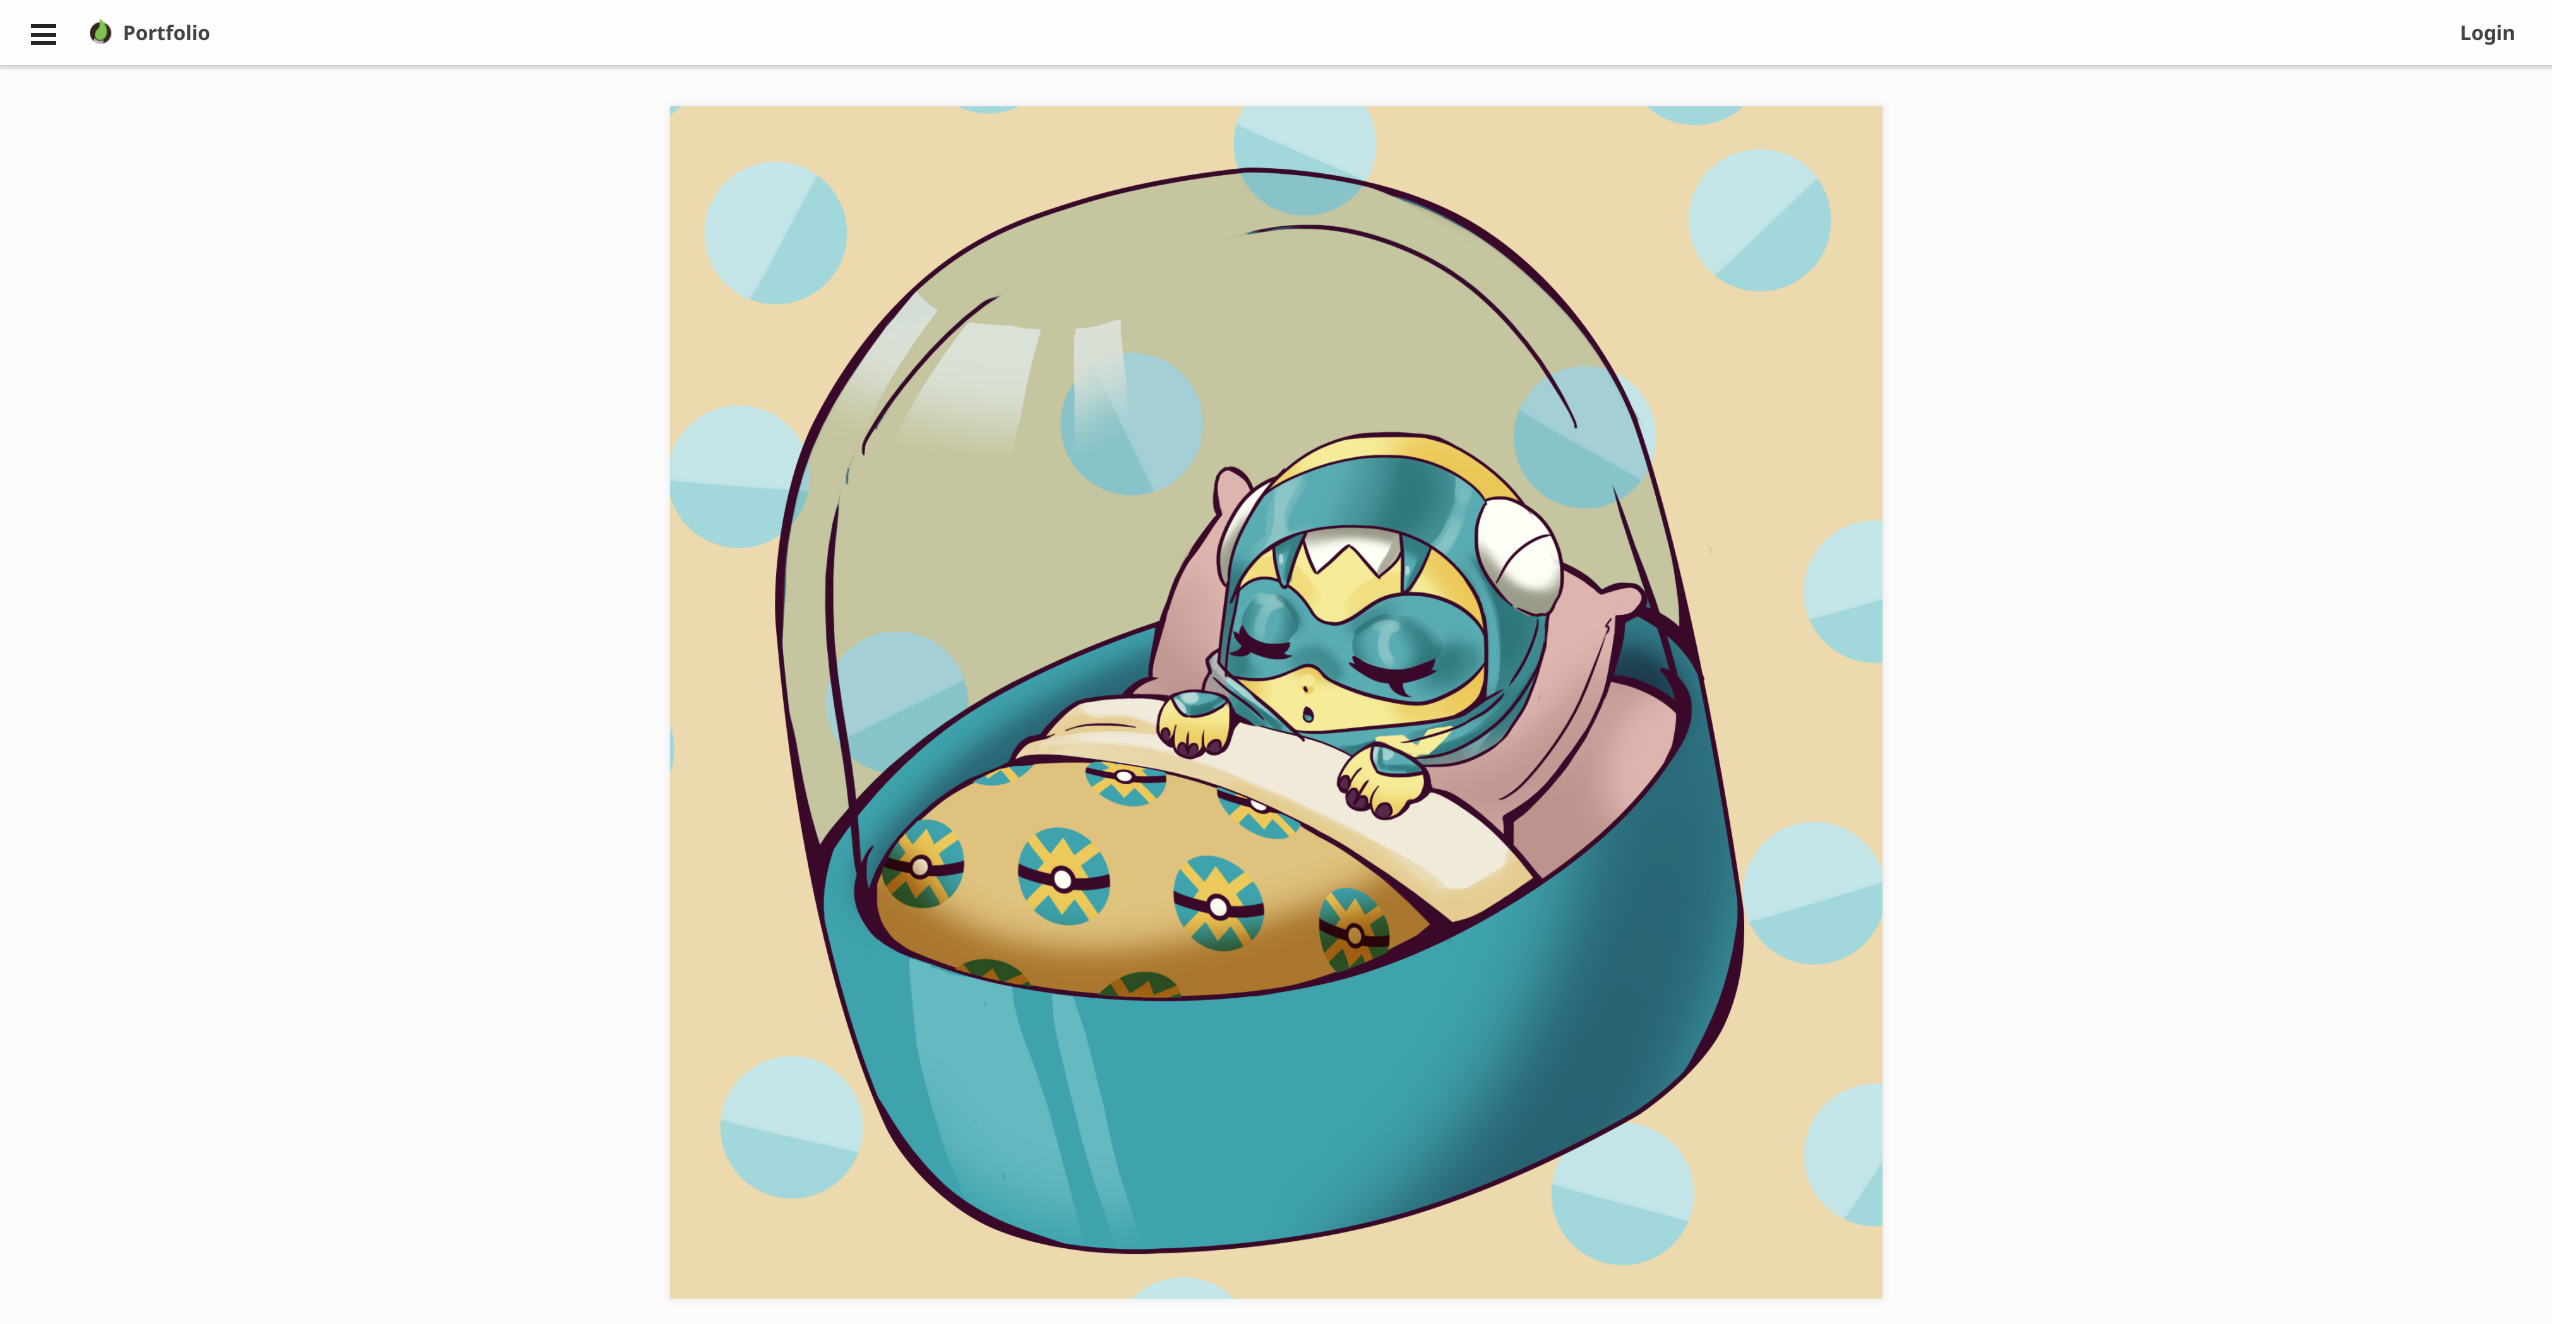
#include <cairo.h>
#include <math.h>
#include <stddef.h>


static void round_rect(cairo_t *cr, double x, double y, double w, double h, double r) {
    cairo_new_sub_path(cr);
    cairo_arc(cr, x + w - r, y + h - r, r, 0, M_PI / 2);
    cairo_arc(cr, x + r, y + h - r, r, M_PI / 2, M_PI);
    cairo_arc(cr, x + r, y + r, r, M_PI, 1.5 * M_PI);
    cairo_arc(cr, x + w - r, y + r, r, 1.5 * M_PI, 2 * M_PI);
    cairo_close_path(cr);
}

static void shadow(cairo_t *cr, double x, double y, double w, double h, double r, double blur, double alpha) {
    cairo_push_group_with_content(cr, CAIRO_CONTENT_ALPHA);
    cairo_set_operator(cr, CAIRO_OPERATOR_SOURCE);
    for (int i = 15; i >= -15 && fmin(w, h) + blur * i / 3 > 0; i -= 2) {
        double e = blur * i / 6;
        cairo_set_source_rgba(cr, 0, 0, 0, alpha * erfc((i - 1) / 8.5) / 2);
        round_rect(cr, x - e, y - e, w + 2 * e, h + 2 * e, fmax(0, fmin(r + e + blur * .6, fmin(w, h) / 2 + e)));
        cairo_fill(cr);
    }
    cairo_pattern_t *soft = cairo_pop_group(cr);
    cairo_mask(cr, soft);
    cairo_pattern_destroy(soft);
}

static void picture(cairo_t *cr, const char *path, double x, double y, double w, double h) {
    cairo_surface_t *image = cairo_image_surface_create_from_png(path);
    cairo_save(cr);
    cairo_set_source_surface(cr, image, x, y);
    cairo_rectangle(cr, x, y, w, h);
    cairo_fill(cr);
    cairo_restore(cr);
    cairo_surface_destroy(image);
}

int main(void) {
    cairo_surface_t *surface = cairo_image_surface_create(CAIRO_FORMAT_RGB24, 2552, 1324);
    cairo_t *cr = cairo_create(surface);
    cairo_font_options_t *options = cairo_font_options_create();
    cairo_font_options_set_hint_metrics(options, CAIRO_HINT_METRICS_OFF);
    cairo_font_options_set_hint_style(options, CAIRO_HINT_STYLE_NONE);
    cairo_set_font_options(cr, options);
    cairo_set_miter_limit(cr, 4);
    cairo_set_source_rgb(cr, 0.988, 0.988, 0.988);
    cairo_paint(cr);
    cairo_set_source_rgb(cr, 0.867, 0.867, 0.867);
    shadow(cr, 0, 3, 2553, 66, 0, 1, 1);
    cairo_set_source_rgb(cr, 0.996, 0.996, 0.996);
    cairo_rectangle(cr, 0, 1, 2552, 64);
    cairo_fill(cr);
    cairo_set_source_rgb(cr, 0.8, 0.8, 0.8);
    cairo_rectangle(cr, 0, 65, 2552, 1);
    cairo_fill(cr);
    cairo_set_source_rgb(cr, 0.141, 0.141, 0.141);
    cairo_rectangle(cr, 31, 24, 25, 4);
    cairo_fill(cr);
    cairo_rectangle(cr, 31, 33, 25, 4);
    cairo_fill(cr);
    cairo_rectangle(cr, 31, 41, 25, 4);
    cairo_fill(cr);
    picture(cr, "img1.png", 90, 18, 22, 26);
    cairo_select_font_face(cr, "Noto Sans", CAIRO_FONT_SLANT_NORMAL, CAIRO_FONT_WEIGHT_BOLD);
    cairo_set_font_size(cr, 20);
    cairo_set_source_rgb(cr, 0.267, 0.267, 0.267);
    cairo_move_to(cr, 123, 40);
    cairo_show_text(cr, "Portfolio");
    cairo_move_to(cr, 2460, 40);
    cairo_show_text(cr, "Login");
    cairo_set_source_rgb(cr, 0, 0, 0);
    shadow(cr, 670, 106, 1213, 1193, 0, 4, 0.1);
    picture(cr, "img2.png", 670, 106, 1213, 1193);
    cairo_surface_write_to_png(surface, "page.png");
    cairo_font_options_destroy(options);
    cairo_destroy(cr);
    cairo_surface_destroy(surface);
    return 0;
}
